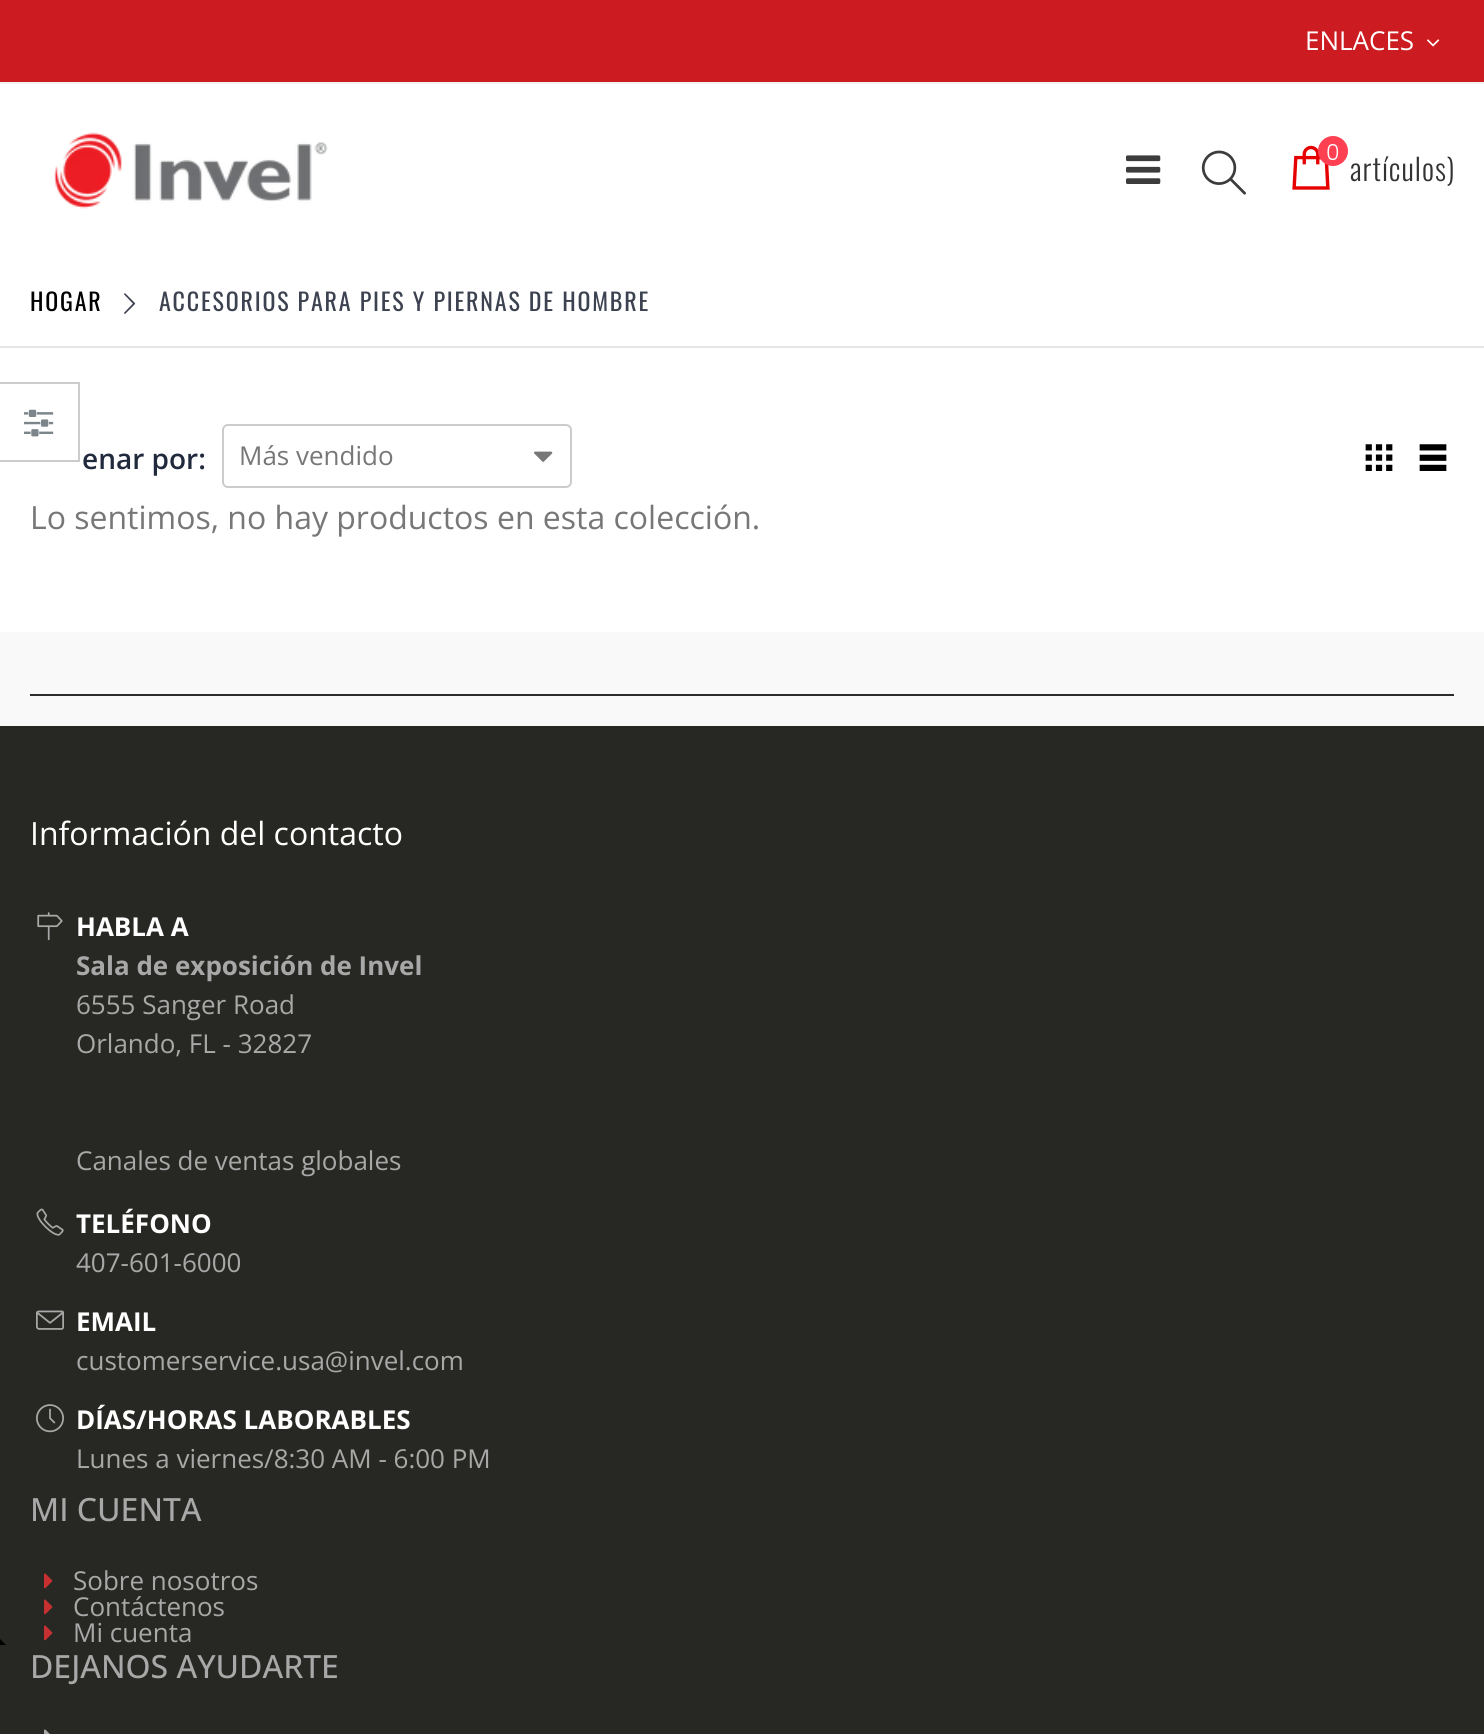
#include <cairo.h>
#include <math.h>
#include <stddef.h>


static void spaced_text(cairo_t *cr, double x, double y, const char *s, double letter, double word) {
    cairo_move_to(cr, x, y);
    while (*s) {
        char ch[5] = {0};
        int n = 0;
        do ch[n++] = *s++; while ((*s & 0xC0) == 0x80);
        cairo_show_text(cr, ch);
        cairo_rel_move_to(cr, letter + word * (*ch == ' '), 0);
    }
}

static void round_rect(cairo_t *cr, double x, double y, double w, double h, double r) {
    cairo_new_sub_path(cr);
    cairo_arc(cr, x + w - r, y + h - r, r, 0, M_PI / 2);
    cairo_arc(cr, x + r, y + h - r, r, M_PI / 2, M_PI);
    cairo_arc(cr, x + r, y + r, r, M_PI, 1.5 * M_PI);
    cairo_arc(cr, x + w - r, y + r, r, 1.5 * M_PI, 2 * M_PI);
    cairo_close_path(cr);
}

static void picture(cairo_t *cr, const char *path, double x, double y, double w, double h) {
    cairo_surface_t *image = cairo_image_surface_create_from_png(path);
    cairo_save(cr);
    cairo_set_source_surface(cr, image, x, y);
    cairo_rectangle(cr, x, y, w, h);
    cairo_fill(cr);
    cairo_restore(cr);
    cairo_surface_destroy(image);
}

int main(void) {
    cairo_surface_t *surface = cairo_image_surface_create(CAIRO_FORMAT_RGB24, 1484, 1734);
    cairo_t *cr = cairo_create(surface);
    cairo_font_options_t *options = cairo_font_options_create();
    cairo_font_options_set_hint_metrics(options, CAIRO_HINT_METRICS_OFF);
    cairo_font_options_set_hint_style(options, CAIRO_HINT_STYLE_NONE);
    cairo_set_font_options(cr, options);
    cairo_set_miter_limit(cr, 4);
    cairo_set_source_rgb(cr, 1, 1, 1);
    cairo_paint(cr);
    cairo_set_source_rgb(cr, 0.153, 0.153, 0.137);
    cairo_rectangle(cr, 0, 726, 1484, 1008);
    cairo_fill(cr);
    cairo_set_source_rgb(cr, 0, 0, 0);
    cairo_set_fill_rule(cr, CAIRO_FILL_RULE_EVEN_ODD);
    cairo_new_path(cr);
    cairo_move_to(cr, -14, 1645);
    cairo_line_to(cr, -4, 1635);
    cairo_line_to(cr, 6, 1645);
    cairo_close_path(cr);
    cairo_fill(cr);
    cairo_set_source_rgb(cr, 0.804, 0.11, 0.129);
    cairo_rectangle(cr, 0, 0, 1484, 82);
    cairo_fill(cr);
    cairo_set_source_rgb(cr, 0.949, 0.949, 0.953);
    cairo_rectangle(cr, 0, 82, 1484, 2);
    cairo_fill(cr);
    cairo_select_font_face(cr, "Open Sans", CAIRO_FONT_SLANT_NORMAL, CAIRO_FONT_WEIGHT_NORMAL);
    cairo_set_font_size(cr, 26);
    cairo_set_source_rgb(cr, 1, 1, 1);
    cairo_move_to(cr, 1305, 50);
    cairo_show_text(cr, "ENLACES");
    picture(cr, "img1.png", 1427, 39, 13, 8);
    picture(cr, "img2.png", 53, 132, 275, 77);
    picture(cr, "img3.png", 1126, 155, 35, 29);
    picture(cr, "img4.png", 1201, 150, 45, 45);
    picture(cr, "img5.png", 1292, 145, 38, 45);
    cairo_set_source_rgb(cr, 1, 0.251, 0.322);
    cairo_arc(cr, 1333, 151, 15, 0, 2 * M_PI);
    cairo_fill(cr);
    cairo_select_font_face(cr, "Poppins Light", CAIRO_FONT_SLANT_NORMAL, CAIRO_FONT_WEIGHT_NORMAL);
    cairo_set_font_size(cr, 22);
    cairo_set_source_rgb(cr, 1, 1, 1);
    spaced_text(cr, 1326, 160, "0", 1, 0);
    cairo_select_font_face(cr, "Oswald Light", CAIRO_FONT_SLANT_NORMAL, CAIRO_FONT_WEIGHT_NORMAL);
    cairo_set_font_size(cr, 30);
    cairo_set_source_rgb(cr, 0.2, 0.2, 0.2);
    spaced_text(cr, 1350, 181, "artículos)", 1, 0);
    cairo_set_source_rgb(cr, 0.902, 0.902, 0.902);
    cairo_rectangle(cr, 0, 346, 1484, 2);
    cairo_fill(cr);
    cairo_select_font_face(cr, "Oswald", CAIRO_FONT_SLANT_NORMAL, CAIRO_FONT_WEIGHT_NORMAL);
    cairo_set_font_size(cr, 24);
    cairo_set_source_rgb(cr, 0, 0, 0);
    spaced_text(cr, 30, 311, "HOGAR", 1.8, 0);
    picture(cr, "img6.png", 124, 293, 12, 21);
    cairo_set_source_rgb(cr, 0.235, 0.259, 0.314);
    spaced_text(cr, 159, 311, "ACCESORIOS PARA PIES Y PIERNAS DE HOMBRE", 1.8, 0);
    cairo_set_source_rgb(cr, 0.8, 0.8, 0.8);
    cairo_rectangle(cr, 0, 382, 80, 2);
    cairo_fill(cr);
    cairo_rectangle(cr, 78, 382, 2, 80);
    cairo_fill(cr);
    cairo_rectangle(cr, 0, 460, 80, 2);
    cairo_fill(cr);
    picture(cr, "img7.png", 24, 409, 30, 28);
    cairo_select_font_face(cr, "Open Sans SemiBold", CAIRO_FONT_SLANT_NORMAL, CAIRO_FONT_WEIGHT_NORMAL);
    cairo_set_font_size(cr, 28);
    cairo_set_source_rgb(cr, 0.129, 0.161, 0.235);
    cairo_move_to(cr, 82, 469);
    cairo_show_text(cr, "enar por:");
    round_rect(cr, 223, 425, 348, 62, 5);
    cairo_set_source_rgb(cr, 0.8, 0.8, 0.8);
    cairo_stroke(cr);
    cairo_select_font_face(cr, "Open Sans", CAIRO_FONT_SLANT_NORMAL, CAIRO_FONT_WEIGHT_NORMAL);
    cairo_set_font_size(cr, 26);
    cairo_set_source_rgb(cr, 0.467, 0.467, 0.467);
    cairo_move_to(cr, 239, 465);
    cairo_show_text(cr, "Más vendido");
    picture(cr, "img8.png", 534, 451, 19, 11);
    picture(cr, "img9.png", 1365, 444, 28, 27);
    picture(cr, "img10.png", 1419, 444, 28, 27);
    cairo_set_font_size(cr, 32);
    cairo_move_to(cr, 30, 529);
    cairo_show_text(cr, "Lo sentimos, no hay productos en esta colección.");
    cairo_set_source_rgb(cr, 0.973, 0.973, 0.973);
    cairo_rectangle(cr, 0, 632, 1484, 94);
    cairo_fill(cr);
    cairo_set_source_rgb(cr, 0.173, 0.173, 0.173);
    cairo_rectangle(cr, 30, 694, 1424, 2);
    cairo_fill(cr);
    cairo_set_source_rgb(cr, 1, 1, 1);
    cairo_move_to(cr, 30, 845);
    cairo_show_text(cr, "Información del contacto");
    picture(cr, "img11.png", 37, 912, 26, 29);
    cairo_select_font_face(cr, "Open Sans", CAIRO_FONT_SLANT_NORMAL, CAIRO_FONT_WEIGHT_BOLD);
    cairo_set_font_size(cr, 26);
    cairo_move_to(cr, 76, 936);
    cairo_show_text(cr, "HABLA A");
    cairo_set_source_rgb(cr, 0.659, 0.659, 0.659);
    cairo_move_to(cr, 76, 975);
    cairo_show_text(cr, "Sala de exposición de Invel");
    cairo_select_font_face(cr, "Open Sans", CAIRO_FONT_SLANT_NORMAL, CAIRO_FONT_WEIGHT_NORMAL);
    cairo_move_to(cr, 76, 1014);
    cairo_show_text(cr, "6555 Sanger Road");
    cairo_move_to(cr, 76, 1053);
    cairo_show_text(cr, "Orlando, FL - 32827");
    cairo_move_to(cr, 76, 1170);
    cairo_show_text(cr, "Canales de ventas globales");
    picture(cr, "img12.png", 36, 1208, 28, 28);
    cairo_select_font_face(cr, "Open Sans", CAIRO_FONT_SLANT_NORMAL, CAIRO_FONT_WEIGHT_BOLD);
    cairo_set_source_rgb(cr, 1, 1, 1);
    cairo_move_to(cr, 76, 1233);
    cairo_show_text(cr, "TELÉFONO");
    cairo_select_font_face(cr, "Open Sans", CAIRO_FONT_SLANT_NORMAL, CAIRO_FONT_WEIGHT_NORMAL);
    cairo_set_source_rgb(cr, 0.659, 0.659, 0.659);
    cairo_move_to(cr, 76, 1272);
    cairo_show_text(cr, "407-601-6000");
    picture(cr, "img13.png", 36, 1310, 28, 20);
    cairo_select_font_face(cr, "Open Sans", CAIRO_FONT_SLANT_NORMAL, CAIRO_FONT_WEIGHT_BOLD);
    cairo_set_source_rgb(cr, 1, 1, 1);
    cairo_move_to(cr, 76, 1331);
    cairo_show_text(cr, "EMAIL");
    cairo_select_font_face(cr, "Open Sans", CAIRO_FONT_SLANT_NORMAL, CAIRO_FONT_WEIGHT_NORMAL);
    cairo_set_source_rgb(cr, 0.659, 0.659, 0.659);
    cairo_move_to(cr, 76, 1370);
    cairo_show_text(cr, "customerservice.usa@invel.com");
    picture(cr, "img14.png", 36, 1404, 28, 29);
    cairo_select_font_face(cr, "Open Sans", CAIRO_FONT_SLANT_NORMAL, CAIRO_FONT_WEIGHT_BOLD);
    cairo_set_source_rgb(cr, 1, 1, 1);
    cairo_move_to(cr, 76, 1429);
    cairo_show_text(cr, "DÍAS/HORAS LABORABLES");
    cairo_select_font_face(cr, "Open Sans", CAIRO_FONT_SLANT_NORMAL, CAIRO_FONT_WEIGHT_NORMAL);
    cairo_set_source_rgb(cr, 0.659, 0.659, 0.659);
    cairo_move_to(cr, 76, 1468);
    cairo_show_text(cr, "Lunes a viernes/8:30 AM - 6:00 PM");
    cairo_select_font_face(cr, "Open Sans Medium", CAIRO_FONT_SLANT_NORMAL, CAIRO_FONT_WEIGHT_NORMAL);
    cairo_set_font_size(cr, 32);
    cairo_move_to(cr, 30, 1521);
    cairo_show_text(cr, "MI CUENTA");
    picture(cr, "img15.png", 44, 1573, 9, 16);
    cairo_select_font_face(cr, "Open Sans", CAIRO_FONT_SLANT_NORMAL, CAIRO_FONT_WEIGHT_NORMAL);
    cairo_set_font_size(cr, 26);
    cairo_move_to(cr, 73, 1590);
    cairo_show_text(cr, "Sobre nosotros");
    picture(cr, "img15.png", 44, 1599, 9, 16);
    cairo_move_to(cr, 73, 1616);
    cairo_show_text(cr, "Contáctenos");
    picture(cr, "img15.png", 44, 1625, 9, 16);
    cairo_move_to(cr, 73, 1642);
    cairo_show_text(cr, "Mi cuenta");
    cairo_select_font_face(cr, "Open Sans Medium", CAIRO_FONT_SLANT_NORMAL, CAIRO_FONT_WEIGHT_NORMAL);
    cairo_set_font_size(cr, 32);
    cairo_move_to(cr, 30, 1678);
    cairo_show_text(cr, "DEJANOS AYUDARTE");
    picture(cr, "img16.png", 44, 1729, 6, 5);
    cairo_surface_write_to_png(surface, "page.png");
    cairo_font_options_destroy(options);
    cairo_destroy(cr);
    cairo_surface_destroy(surface);
    return 0;
}
